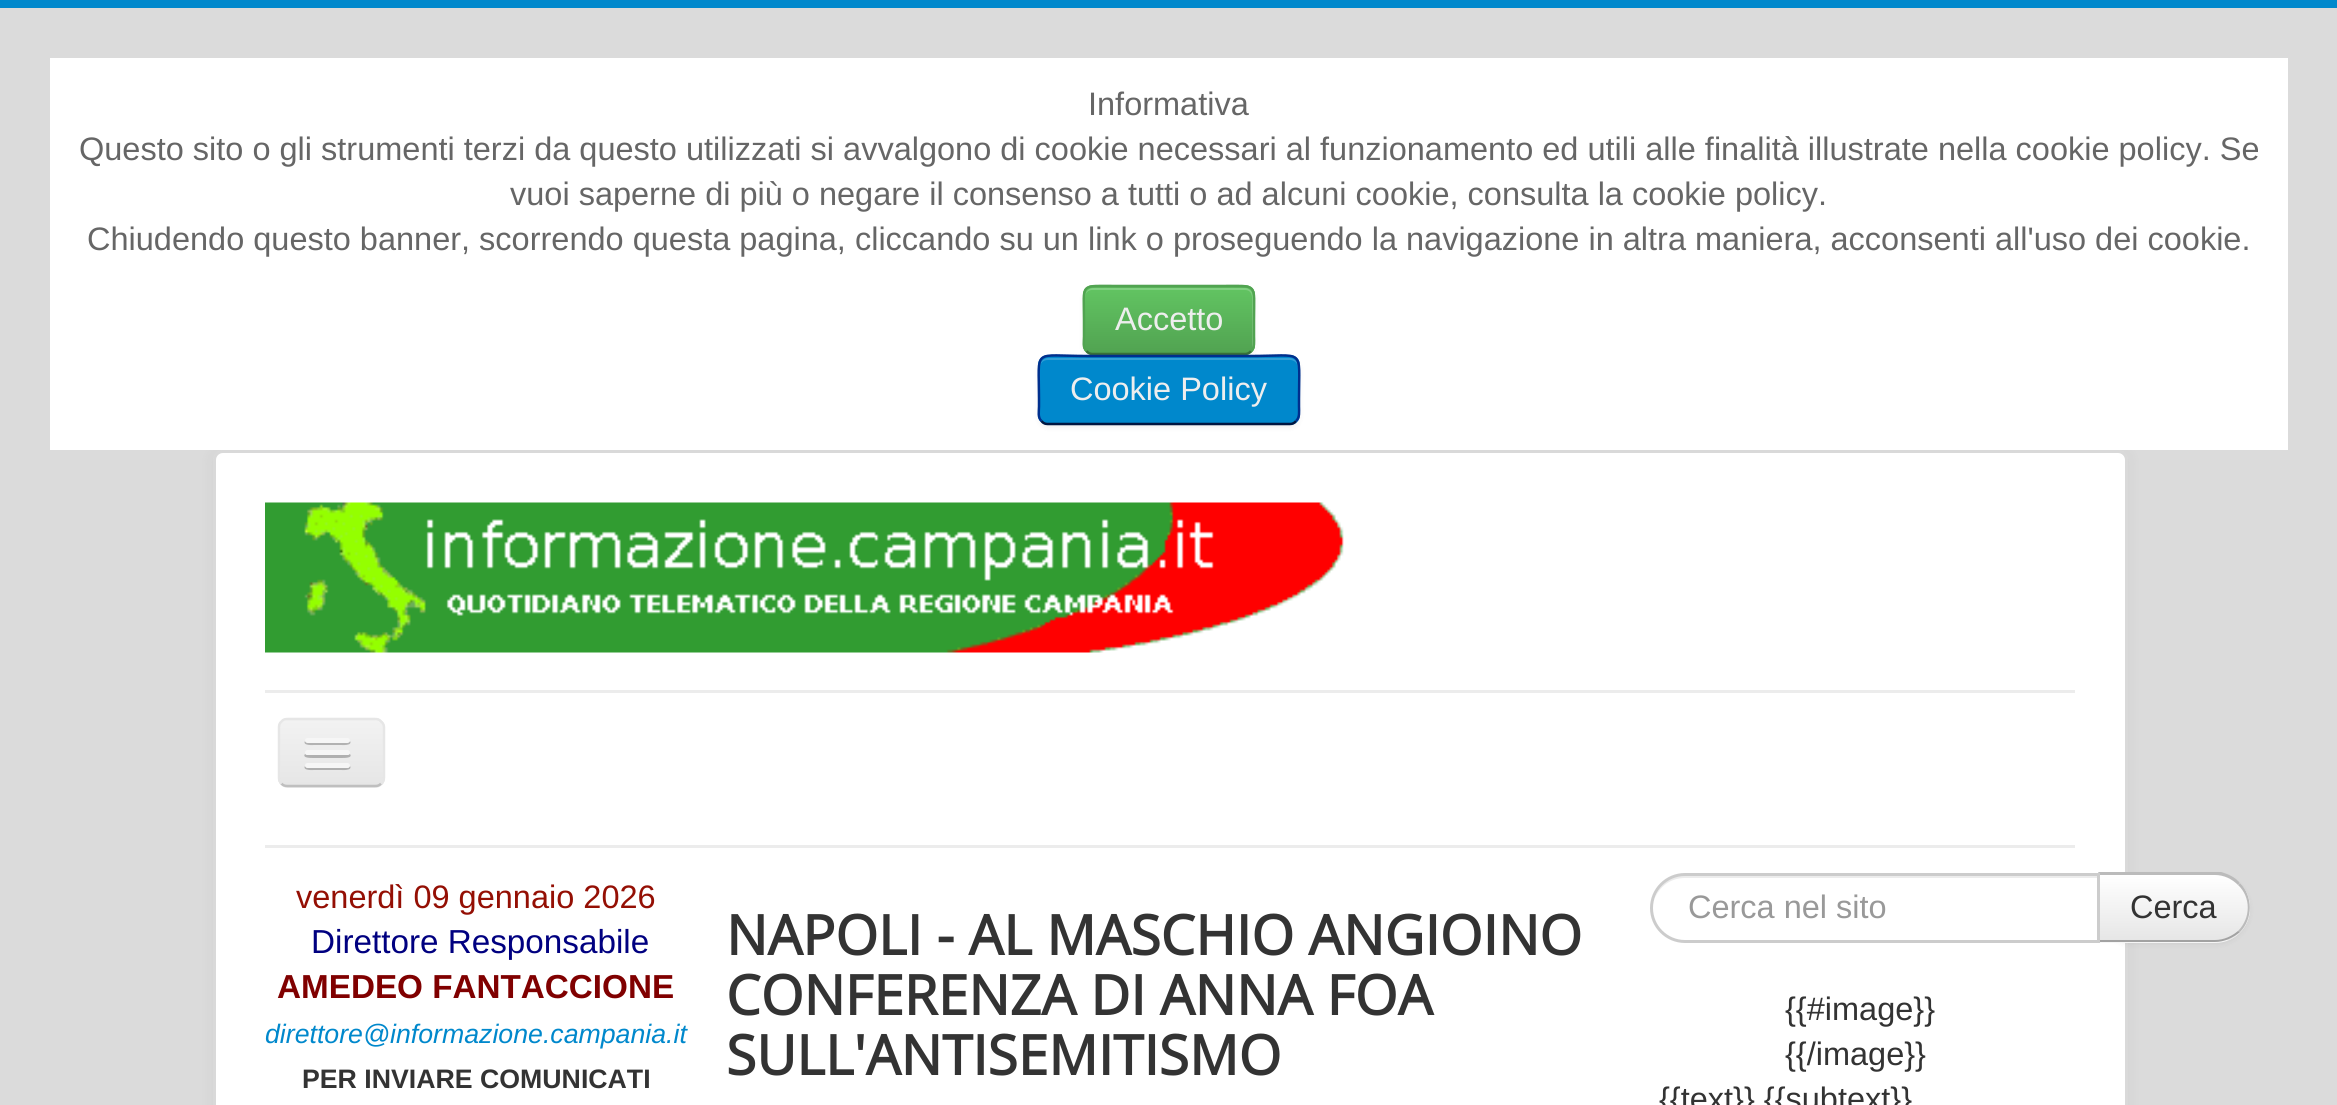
#include <cairo.h>
#include <math.h>
#include <stddef.h>


static void round_rect(cairo_t *cr, double x, double y, double w, double h, double r) {
    cairo_new_sub_path(cr);
    cairo_arc(cr, x + w - r, y + h - r, r, 0, M_PI / 2);
    cairo_arc(cr, x + r, y + h - r, r, M_PI / 2, M_PI);
    cairo_arc(cr, x + r, y + r, r, M_PI, 1.5 * M_PI);
    cairo_arc(cr, x + w - r, y + r, r, 1.5 * M_PI, 2 * M_PI);
    cairo_close_path(cr);
}

static void shadow(cairo_t *cr, double x, double y, double w, double h, double r, double blur, double alpha) {
    cairo_push_group_with_content(cr, CAIRO_CONTENT_ALPHA);
    cairo_set_operator(cr, CAIRO_OPERATOR_SOURCE);
    for (int i = 15; i >= -15 && fmin(w, h) + blur * i / 3 > 0; i -= 2) {
        double e = blur * i / 6;
        cairo_set_source_rgba(cr, 0, 0, 0, alpha * erfc((i - 1) / 8.5) / 2);
        round_rect(cr, x - e, y - e, w + 2 * e, h + 2 * e, fmax(0, fmin(r + e + blur * .6, fmin(w, h) / 2 + e)));
        cairo_fill(cr);
    }
    cairo_pattern_t *soft = cairo_pop_group(cr);
    cairo_mask(cr, soft);
    cairo_pattern_destroy(soft);
}

static void picture(cairo_t *cr, const char *path, double x, double y, double w, double h) {
    cairo_surface_t *image = cairo_image_surface_create_from_png(path);
    cairo_save(cr);
    cairo_set_source_surface(cr, image, x, y);
    cairo_rectangle(cr, x, y, w, h);
    cairo_fill(cr);
    cairo_restore(cr);
    cairo_surface_destroy(image);
}

int main(void) {
    cairo_surface_t *surface = cairo_image_surface_create(CAIRO_FORMAT_RGB24, 2337, 1105);
    cairo_t *cr = cairo_create(surface);
    cairo_font_options_t *options = cairo_font_options_create();
    cairo_font_options_set_hint_metrics(options, CAIRO_HINT_METRICS_OFF);
    cairo_font_options_set_hint_style(options, CAIRO_HINT_STYLE_NONE);
    cairo_set_font_options(cr, options);
    cairo_set_miter_limit(cr, 4);
    cairo_pattern_t *gradient;
    cairo_set_source_rgb(cr, 0.859, 0.859, 0.859);
    cairo_paint(cr);
    cairo_set_source_rgb(cr, 0, 0.533, 0.8);
    cairo_rectangle(cr, 0, 0, 2337, 8);
    cairo_fill(cr);
    cairo_set_source_rgb(cr, 0, 0, 0);
    shadow(cr, 213, 450, 1915, 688, 10, 7.5, 0.05);
    cairo_set_source_rgb(cr, 1, 1, 1);
    cairo_rectangle(cr, 50, 58, 2238, 392);
    cairo_fill(cr);
    cairo_select_font_face(cr, "Liberation Sans", CAIRO_FONT_SLANT_NORMAL, CAIRO_FONT_WEIGHT_NORMAL);
    cairo_set_font_size(cr, 32.5);
    cairo_set_source_rgb(cr, 0.4, 0.4, 0.4);
    cairo_move_to(cr, 1088, 115);
    cairo_show_text(cr, "Informativa");
    cairo_move_to(cr, 79, 160);
    cairo_show_text(cr, "Questo sito o gli strumenti terzi da questo utilizzati si avvalgono di cookie necessari al funzionamento ed utili alle finalità illustrate nella cookie policy. Se");
    cairo_move_to(cr, 510, 205);
    cairo_show_text(cr, "vuoi saperne di più o negare il consenso a tutti o ad alcuni cookie, consulta la cookie policy.");
    cairo_move_to(cr, 87, 250);
    cairo_show_text(cr, "Chiudendo questo banner, scorrendo questa pagina, cliccando su un link o proseguendo la navigazione in altra maniera, acconsenti all'uso dei cookie.");
    cairo_set_source_rgb(cr, 0, 0, 0);
    shadow(cr, 1083, 288, 172, 70, 10, 2.5, 0.05);
    cairo_set_source_rgb(cr, 0.357, 0.718, 0.357);
    round_rect(cr, 1083, 285, 172, 70, 10);
    cairo_fill(cr);
    cairo_save(cr);
    round_rect(cr, 1083, 285, 172, 70, 10);
    cairo_clip(cr);
    gradient = cairo_pattern_create_linear(1169, 288, 1169, 353);
    cairo_pattern_add_color_stop_rgba(gradient, 0, 0.384, 0.769, 0.384, 1);
    cairo_pattern_add_color_stop_rgba(gradient, 1, 0.318, 0.639, 0.318, 1);
    cairo_set_source(cr, gradient);
    cairo_pattern_destroy(gradient);
    cairo_rectangle(cr, 1083, 288, 172, 65);
    cairo_fill(cr);
    cairo_restore(cr);
    cairo_set_source_rgba(cr, 1, 1, 1, 0.2);
    cairo_new_path(cr);
    cairo_move_to(cr, 1092, 290);
    cairo_line_to(cr, 1245, 290);
    cairo_curve_to(cr, 1254, 290, 1252, 301, 1252, 306);
    cairo_line_to(cr, 1252, 349);
    cairo_curve_to(cr, 1253, 348, 1253, 346, 1253, 345);
    cairo_line_to(cr, 1253, 296);
    cairo_curve_to(cr, 1253, 292, 1249, 288, 1245, 288);
    cairo_line_to(cr, 1093, 288);
    cairo_curve_to(cr, 1089, 288, 1085, 292, 1085, 296);
    cairo_line_to(cr, 1085, 298);
    cairo_curve_to(cr, 1085, 293, 1088, 290, 1092, 290);
    cairo_close_path(cr);
    cairo_fill(cr);
    cairo_new_path(cr);
    cairo_move_to(cr, 1251, 351);
    cairo_curve_to(cr, 1249.5, 353, 1247.5, 354, 1245, 354);
    cairo_line_to(cr, 1092.5, 354);
    cairo_curve_to(cr, 1090, 354, 1088, 353, 1086.5, 351);
    cairo_set_source_rgb(cr, 0.22, 0.439, 0.22);
    cairo_set_line_width(cr, 2.5);
    cairo_stroke(cr);
    cairo_new_path(cr);
    cairo_move_to(cr, 1086.5, 351);
    cairo_curve_to(cr, 1082.5, 347.5, 1084, 341.5, 1084, 336.5);
    cairo_line_to(cr, 1084, 320);
    cairo_curve_to(cr, 1084, 282, 1078.5, 286, 1118, 286);
    cairo_line_to(cr, 1219.5, 286);
    cairo_curve_to(cr, 1259, 286, 1254, 282, 1254, 320);
    cairo_line_to(cr, 1254, 336.5);
    cairo_curve_to(cr, 1254, 341.5, 1255, 347.5, 1251, 351);
    cairo_set_source_rgb(cr, 0.318, 0.639, 0.318);
    cairo_stroke(cr);
    cairo_set_source_rgb(cr, 0.933, 0.933, 0.933);
    cairo_move_to(cr, 1115, 330);
    cairo_show_text(cr, "Accetto");
    cairo_set_source_rgb(cr, 0, 0, 0);
    shadow(cr, 1038, 358, 262, 70, 10, 2.5, 0.05);
    cairo_set_source_rgb(cr, 0, 0.533, 0.8);
    round_rect(cr, 1038, 355, 262, 70, 10);
    cairo_fill(cr);
    cairo_set_source_rgb(cr, 0.2, 0.627, 0.839);
    cairo_new_path(cr);
    cairo_move_to(cr, 1048, 360);
    cairo_line_to(cr, 1290, 360);
    cairo_curve_to(cr, 1294, 360, 1298, 363, 1298, 368);
    cairo_line_to(cr, 1298, 366);
    cairo_curve_to(cr, 1298, 362, 1294, 358, 1290, 358);
    cairo_line_to(cr, 1048, 358);
    cairo_curve_to(cr, 1044, 358, 1040, 362, 1040, 366);
    cairo_line_to(cr, 1040, 368);
    cairo_curve_to(cr, 1040, 363, 1043, 360, 1048, 360);
    cairo_close_path(cr);
    cairo_fill(cr);
    cairo_new_path(cr);
    cairo_move_to(cr, 1296, 421);
    cairo_curve_to(cr, 1294.5, 423, 1292.5, 424, 1290, 424);
    cairo_line_to(cr, 1047.5, 424);
    cairo_curve_to(cr, 1045, 424, 1043, 423, 1041.5, 421);
    cairo_set_source_rgb(cr, 0, 0.086, 0.255);
    cairo_stroke(cr);
    cairo_new_path(cr);
    cairo_move_to(cr, 1041.5, 421);
    cairo_curve_to(cr, 1037.5, 417.5, 1039, 411.5, 1039, 406.5);
    cairo_line_to(cr, 1039, 398.5);
    cairo_curve_to(cr, 1039, 347, 1031.5, 356, 1088, 356);
    cairo_line_to(cr, 1249.5, 356);
    cairo_curve_to(cr, 1306, 356, 1299, 347, 1299, 398.5);
    cairo_line_to(cr, 1299, 406.5);
    cairo_curve_to(cr, 1299, 411.5, 1300, 417.5, 1296, 421);
    cairo_set_source_rgb(cr, 0, 0.184, 0.553);
    cairo_stroke(cr);
    cairo_set_source_rgb(cr, 0.933, 0.933, 0.933);
    cairo_move_to(cr, 1070, 400);
    cairo_show_text(cr, "Cookie Policy");
    cairo_set_source_rgb(cr, 1, 1, 1);
    round_rect(cr, 213, 450, 1915, 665, 10);
    cairo_fill(cr);
    round_rect(cr, 214.5, 451.5, 1912, 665, 8.5);
    cairo_set_source_rgba(cr, 0, 0, 0, 0.15);
    cairo_set_line_width(cr, 3);
    cairo_stroke(cr);
    picture(cr, "img1.png", 265, 502, 1079, 151);
    cairo_set_source_rgb(cr, 0.925, 0.925, 0.925);
    cairo_rectangle(cr, 265, 690, 1810, 3);
    cairo_fill(cr);
    cairo_rectangle(cr, 265, 845, 1810, 3);
    cairo_fill(cr);
    cairo_set_source_rgb(cr, 0.929, 0.929, 0.929);
    round_rect(cr, 278, 718, 107, 70, 10);
    cairo_fill(cr);
    cairo_save(cr);
    round_rect(cr, 278, 718, 107, 70, 10);
    cairo_clip(cr);
    gradient = cairo_pattern_create_linear(331, 720, 331, 785);
    cairo_pattern_add_color_stop_rgba(gradient, 0, 0.949, 0.949, 0.949, 1);
    cairo_pattern_add_color_stop_rgba(gradient, 1, 0.902, 0.902, 0.902, 1);
    cairo_set_source(cr, gradient);
    cairo_pattern_destroy(gradient);
    cairo_rectangle(cr, 278, 720, 107, 65);
    cairo_fill(cr);
    cairo_restore(cr);
    cairo_new_path(cr);
    cairo_move_to(cr, 381, 783.5);
    cairo_curve_to(cr, 379.5, 785.5, 377.5, 786, 375, 786);
    cairo_line_to(cr, 287.5, 786);
    cairo_curve_to(cr, 285, 786, 283, 785.5, 281.5, 783.5);
    cairo_set_source_rgb(cr, 0.749, 0.749, 0.749);
    cairo_set_line_width(cr, 2.5);
    cairo_stroke(cr);
    cairo_new_path(cr);
    cairo_move_to(cr, 281.5, 783.5);
    cairo_curve_to(cr, 279.5, 782, 279, 780, 279, 777.5);
    cairo_line_to(cr, 279, 727.5);
    cairo_curve_to(cr, 279, 725, 279.5, 723, 281.5, 721.5);
    cairo_curve_to(cr, 283, 719.5, 285, 719, 287.5, 719);
    cairo_line_to(cr, 375, 719);
    cairo_curve_to(cr, 377.5, 719, 379.5, 719.5, 381, 721.5);
    cairo_curve_to(cr, 383, 723, 384, 725, 384, 727.5);
    cairo_line_to(cr, 384, 777.5);
    cairo_curve_to(cr, 384, 780, 383, 782, 381, 783.5);
    cairo_set_source_rgb(cr, 0.902, 0.902, 0.902);
    cairo_stroke(cr);
    cairo_set_source_rgb(cr, 0.698, 0.698, 0.698);
    cairo_new_path(cr);
    cairo_move_to(cr, 305, 741);
    cairo_curve_to(cr, 302, 746, 314, 745, 314, 745);
    cairo_line_to(cr, 341, 745);
    cairo_curve_to(cr, 341, 745, 353, 746, 350, 741);
    cairo_curve_to(cr, 349, 742, 348, 742, 348, 742);
    cairo_line_to(cr, 308, 742);
    cairo_curve_to(cr, 307, 742, 306, 742, 305, 741);
    cairo_close_path(cr);
    cairo_fill(cr);
    cairo_set_source_rgb(cr, 0.961, 0.961, 0.961);
    round_rect(cr, 305, 738, 45, 5, 2.5);
    cairo_fill(cr);
    cairo_set_source_rgb(cr, 0.69, 0.69, 0.69);
    cairo_new_path(cr);
    cairo_move_to(cr, 305, 754);
    cairo_curve_to(cr, 302, 758, 310, 758, 314, 758);
    cairo_line_to(cr, 341, 758);
    cairo_curve_to(cr, 345, 758, 353, 758, 350, 754);
    cairo_line_to(cr, 348, 755);
    cairo_line_to(cr, 307, 755);
    cairo_close_path(cr);
    cairo_fill(cr);
    cairo_set_source_rgb(cr, 0.961, 0.961, 0.961);
    round_rect(cr, 305, 750, 45, 5, 2.5);
    cairo_fill(cr);
    cairo_set_source_rgb(cr, 0.686, 0.686, 0.686);
    cairo_new_path(cr);
    cairo_move_to(cr, 305, 766);
    cairo_curve_to(cr, 302, 771, 314, 770, 314, 770);
    cairo_line_to(cr, 341, 770);
    cairo_curve_to(cr, 341, 770, 353, 771, 350, 766);
    cairo_curve_to(cr, 349, 767, 348, 768, 348, 768);
    cairo_line_to(cr, 308, 768);
    cairo_curve_to(cr, 307, 768, 306, 767, 305, 766);
    cairo_close_path(cr);
    cairo_fill(cr);
    cairo_set_source_rgb(cr, 0.961, 0.961, 0.961);
    round_rect(cr, 305, 763, 45, 5, 2.5);
    cairo_fill(cr);
    cairo_set_source_rgb(cr, 0.58, 0.059, 0.016);
    cairo_move_to(cr, 296, 908);
    cairo_show_text(cr, "venerdì 09 gennaio 2026");
    cairo_set_font_size(cr, 33.25);
    cairo_set_source_rgb(cr, 0, 0, 0.502);
    cairo_move_to(cr, 311, 953);
    cairo_show_text(cr, "Direttore Responsabile");
    cairo_select_font_face(cr, "Liberation Sans", CAIRO_FONT_SLANT_NORMAL, CAIRO_FONT_WEIGHT_BOLD);
    cairo_set_source_rgb(cr, 0.502, 0, 0);
    cairo_move_to(cr, 277, 998);
    cairo_show_text(cr, "AMEDEO FANTACCIONE");
    cairo_select_font_face(cr, "Liberation Sans", CAIRO_FONT_SLANT_ITALIC, CAIRO_FONT_WEIGHT_NORMAL);
    cairo_set_font_size(cr, 26.7);
    cairo_set_source_rgb(cr, 0, 0.533, 0.8);
    cairo_move_to(cr, 265, 1043);
    cairo_show_text(cr, "direttore@informazione.campania.it");
    cairo_select_font_face(cr, "Liberation Sans", CAIRO_FONT_SLANT_NORMAL, CAIRO_FONT_WEIGHT_BOLD);
    cairo_set_source_rgb(cr, 0.2, 0.2, 0.2);
    cairo_move_to(cr, 302, 1088);
    cairo_show_text(cr, "PER INVIARE COMUNICATI");
    cairo_select_font_face(cr, "Open Sans", CAIRO_FONT_SLANT_NORMAL, CAIRO_FONT_WEIGHT_BOLD);
    cairo_set_font_size(cr, 55);
    cairo_move_to(cr, 726, 955);
    cairo_show_text(cr, "NAPOLI - AL MASCHIO ANGIOINO");
    cairo_move_to(cr, 726, 1015);
    cairo_show_text(cr, "CONFERENZA DI ANNA FOA");
    cairo_move_to(cr, 726, 1075);
    cairo_show_text(cr, "SULL'ANTISEMITISMO");
    cairo_set_source_rgb(cr, 0, 0, 0);
    shadow(cr, 2098, 875, 152, 70, 35, 2.5, 0.05);
    cairo_set_source_rgb(cr, 0.961, 0.961, 0.961);
    cairo_new_path(cr);
    cairo_move_to(cr, 2098, 873);
    cairo_line_to(cr, 2215, 873);
    cairo_curve_to(cr, 2234.5, 873, 2250, 888.5, 2250, 908);
    cairo_curve_to(cr, 2250, 927.5, 2234.5, 943, 2215, 943);
    cairo_line_to(cr, 2098, 943);
    cairo_close_path(cr);
    cairo_fill(cr);
    cairo_save(cr);
    cairo_new_path(cr);
    cairo_move_to(cr, 2098, 873);
    cairo_line_to(cr, 2215, 873);
    cairo_curve_to(cr, 2234.5, 873, 2250, 888.5, 2250, 908);
    cairo_curve_to(cr, 2250, 927.5, 2234.5, 943, 2215, 943);
    cairo_line_to(cr, 2098, 943);
    cairo_close_path(cr);
    cairo_clip(cr);
    gradient = cairo_pattern_create_linear(2174, 875, 2174, 940);
    cairo_pattern_add_color_stop_rgba(gradient, 0, 1, 1, 1, 1);
    cairo_pattern_add_color_stop_rgba(gradient, 1, 0.902, 0.902, 0.902, 1);
    cairo_set_source(cr, gradient);
    cairo_pattern_destroy(gradient);
    cairo_rectangle(cr, 2100, 875, 150, 65);
    cairo_fill(cr);
    cairo_restore(cr);
    cairo_set_source_rgb(cr, 0.733, 0.733, 0.733);
    cairo_new_path(cr);
    cairo_move_to(cr, 2100, 875);
    cairo_line_to(cr, 2098, 872);
    cairo_line_to(cr, 2221, 872);
    cairo_curve_to(cr, 2228, 874, 2235, 877, 2240, 883);
    cairo_line_to(cr, 2238, 885);
    cairo_curve_to(cr, 2232, 879, 2224, 875, 2215, 875);
    cairo_close_path(cr);
    cairo_fill(cr);
    cairo_new_path(cr);
    cairo_move_to(cr, 2240, 883);
    cairo_curve_to(cr, 2253, 896, 2253, 919, 2240, 932);
    cairo_line_to(cr, 2238, 931);
    cairo_curve_to(cr, 2251, 918, 2251, 897, 2238, 885);
    cairo_close_path(cr);
    cairo_fill(cr);
    cairo_set_source_rgb(cr, 0.635, 0.635, 0.635);
    cairo_new_path(cr);
    cairo_move_to(cr, 2240, 932);
    cairo_curve_to(cr, 2233, 938, 2224, 942, 2215, 942);
    cairo_line_to(cr, 2098, 942);
    cairo_line_to(cr, 2100, 940);
    cairo_line_to(cr, 2215, 940);
    cairo_curve_to(cr, 2224, 940, 2232, 936, 2238, 931);
    cairo_close_path(cr);
    cairo_fill(cr);
    cairo_set_source_rgb(cr, 1, 1, 1);
    cairo_new_path(cr);
    cairo_move_to(cr, 1685, 873);
    cairo_line_to(cr, 2100, 873);
    cairo_line_to(cr, 2100, 943);
    cairo_line_to(cr, 1685, 943);
    cairo_curve_to(cr, 1665.5, 943, 1650, 927.5, 1650, 908);
    cairo_curve_to(cr, 1650, 888.5, 1665.5, 873, 1685, 873);
    cairo_close_path(cr);
    cairo_fill(cr);
    cairo_set_source_rgb(cr, 0.925, 0.925, 0.925);
    cairo_new_path(cr);
    cairo_move_to(cr, 1685, 878);
    cairo_line_to(cr, 2098, 878);
    cairo_line_to(cr, 2098, 875);
    cairo_line_to(cr, 1686, 875);
    cairo_curve_to(cr, 1671, 875, 1659, 885, 1655, 898);
    cairo_curve_to(cr, 1660, 886, 1671, 878, 1685, 878);
    cairo_close_path(cr);
    cairo_fill(cr);
    cairo_new_path(cr);
    cairo_move_to(cr, 1685, 874.5);
    cairo_line_to(cr, 2098.5, 874.5);
    cairo_line_to(cr, 2098.5, 941.5);
    cairo_line_to(cr, 1685, 941.5);
    cairo_curve_to(cr, 1666.5, 941.5, 1651.5, 926.5, 1651.5, 908);
    cairo_curve_to(cr, 1651.5, 889.5, 1666.5, 874.5, 1685, 874.5);
    cairo_close_path(cr);
    cairo_set_source_rgb(cr, 0.8, 0.8, 0.8);
    cairo_set_line_width(cr, 3);
    cairo_stroke(cr);
    cairo_select_font_face(cr, "Liberation Sans", CAIRO_FONT_SLANT_NORMAL, CAIRO_FONT_WEIGHT_NORMAL);
    cairo_set_font_size(cr, 32.5);
    cairo_set_source_rgb(cr, 0.6, 0.6, 0.6);
    cairo_move_to(cr, 1688, 918);
    cairo_show_text(cr, "Cerca nel sito");
    cairo_set_source_rgb(cr, 0.2, 0.2, 0.2);
    cairo_move_to(cr, 2130, 918);
    cairo_show_text(cr, "Cerca");
    cairo_move_to(cr, 1785, 1020);
    cairo_show_text(cr, "{{#image}}");
    cairo_move_to(cr, 1785, 1065);
    cairo_show_text(cr, "{{/image}}");
    cairo_move_to(cr, 1659, 1110);
    cairo_show_text(cr, "{{text}} {{subtext}}");
    cairo_surface_write_to_png(surface, "page.png");
    cairo_font_options_destroy(options);
    cairo_destroy(cr);
    cairo_surface_destroy(surface);
    return 0;
}
